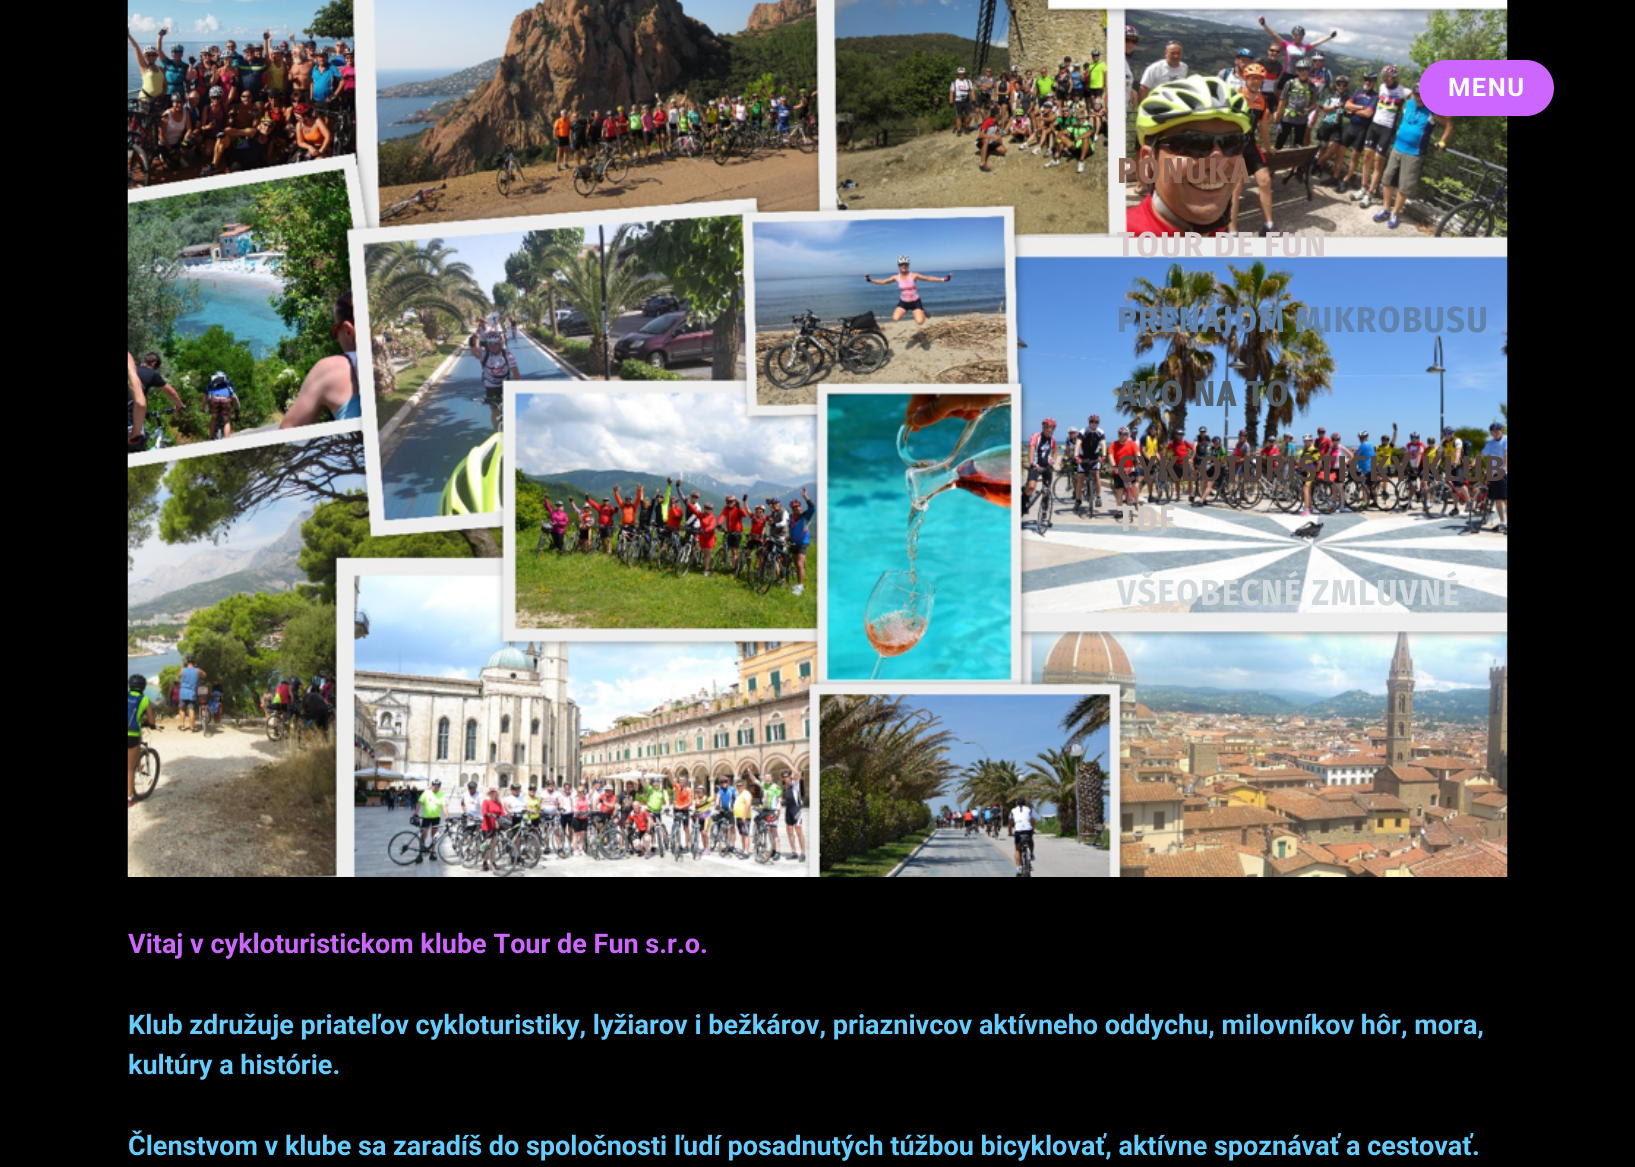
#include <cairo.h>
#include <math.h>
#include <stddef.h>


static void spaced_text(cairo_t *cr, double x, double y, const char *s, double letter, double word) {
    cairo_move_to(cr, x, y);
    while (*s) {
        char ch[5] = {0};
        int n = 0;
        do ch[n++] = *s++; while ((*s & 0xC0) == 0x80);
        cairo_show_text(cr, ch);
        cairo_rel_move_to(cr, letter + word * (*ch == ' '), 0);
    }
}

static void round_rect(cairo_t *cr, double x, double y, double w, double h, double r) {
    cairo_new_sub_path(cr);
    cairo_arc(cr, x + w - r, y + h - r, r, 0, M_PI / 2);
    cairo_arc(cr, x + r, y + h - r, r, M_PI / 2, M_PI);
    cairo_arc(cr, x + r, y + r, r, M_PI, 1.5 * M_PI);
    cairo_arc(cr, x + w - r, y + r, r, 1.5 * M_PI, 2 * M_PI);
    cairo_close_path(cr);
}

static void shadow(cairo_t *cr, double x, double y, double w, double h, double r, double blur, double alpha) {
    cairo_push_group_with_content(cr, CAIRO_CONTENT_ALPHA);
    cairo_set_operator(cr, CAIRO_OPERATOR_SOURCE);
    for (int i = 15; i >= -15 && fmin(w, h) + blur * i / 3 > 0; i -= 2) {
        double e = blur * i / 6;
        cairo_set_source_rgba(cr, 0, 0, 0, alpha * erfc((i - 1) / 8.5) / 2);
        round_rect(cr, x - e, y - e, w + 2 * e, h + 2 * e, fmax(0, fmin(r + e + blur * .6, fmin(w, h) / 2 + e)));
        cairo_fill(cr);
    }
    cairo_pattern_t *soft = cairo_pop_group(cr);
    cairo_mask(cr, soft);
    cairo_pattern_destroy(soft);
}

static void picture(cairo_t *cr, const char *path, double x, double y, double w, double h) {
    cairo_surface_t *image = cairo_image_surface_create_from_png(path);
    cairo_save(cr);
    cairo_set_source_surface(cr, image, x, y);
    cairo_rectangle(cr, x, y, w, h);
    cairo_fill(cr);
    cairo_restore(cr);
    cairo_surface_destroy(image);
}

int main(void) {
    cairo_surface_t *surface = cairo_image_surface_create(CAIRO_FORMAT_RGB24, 1635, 1167);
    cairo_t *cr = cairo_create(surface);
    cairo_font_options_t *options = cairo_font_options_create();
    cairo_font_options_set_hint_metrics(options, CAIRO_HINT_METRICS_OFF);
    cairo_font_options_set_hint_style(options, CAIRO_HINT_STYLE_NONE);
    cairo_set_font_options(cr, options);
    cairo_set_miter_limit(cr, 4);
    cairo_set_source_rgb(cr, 0, 0, 0);
    cairo_paint(cr);
    picture(cr, "img1.png", 127, 0, 1381, 877);
    shadow(cr, 1439, 90, 96, 17, 8.5, 15, 1);
    cairo_set_source_rgb(cr, 0.8, 0.4, 1);
    round_rect(cr, 1419, 60, 135, 56, 28);
    cairo_fill(cr);
    cairo_select_font_face(cr, "Roboto", CAIRO_FONT_SLANT_NORMAL, CAIRO_FONT_WEIGHT_BOLD);
    cairo_set_font_size(cr, 25.5);
    cairo_set_source_rgb(cr, 1, 1, 1);
    spaced_text(cr, 1448, 96, "MENU", 1.5, 0);
    cairo_select_font_face(cr, "Fira Sans Condensed", CAIRO_FONT_SLANT_NORMAL, CAIRO_FONT_WEIGHT_BOLD);
    cairo_set_font_size(cr, 36);
    cairo_set_source_rgb(cr, 0.561, 0.404, 0.341);
    spaced_text(cr, 1117, 183, "PONUKA", 1.5, 0);
    cairo_set_source_rgb(cr, 0.839, 0.792, 0.796);
    spaced_text(cr, 1117, 257, "TOUR DE FUN", 1.5, 0);
    cairo_set_source_rgb(cr, 0.38, 0.51, 0.667);
    spaced_text(cr, 1117, 332, "PRENÁJOM MIKROBUSU", 1.5, 0);
    cairo_set_source_rgb(cr, 0.325, 0.376, 0.412);
    spaced_text(cr, 1117, 406, "AKO NA TO", 1.5, 0);
    cairo_set_source_rgb(cr, 0.325, 0.263, 0.243);
    spaced_text(cr, 1117, 481, "CYKLOTURISTICKÝ KLUB", 1.5, 0);
    cairo_set_source_rgb(cr, 0.796, 0.776, 0.757);
    spaced_text(cr, 1117, 531, "TDF", 1.5, 0);
    cairo_set_source_rgb(cr, 0.82, 0.851, 0.867);
    spaced_text(cr, 1117, 605, "VŠEOBECNÉ ZMLUVNÉ", 1.5, 0);
    cairo_select_font_face(cr, "Roboto", CAIRO_FONT_SLANT_NORMAL, CAIRO_FONT_WEIGHT_BOLD);
    cairo_set_font_size(cr, 27);
    cairo_set_source_rgb(cr, 0.8, 0.4, 0.996);
    cairo_move_to(cr, 128, 953);
    cairo_show_text(cr, "Vitaj v cykloturistickom klube Tour de Fun s.r.o.");
    cairo_set_source_rgb(cr, 0.396, 0.8, 0.996);
    cairo_move_to(cr, 128, 1034);
    cairo_show_text(cr, "Klub združuje priateľov cykloturistiky, lyžiarov i bežkárov, priaznivcov aktívneho oddychu, milovníkov hôr, mora,");
    cairo_move_to(cr, 128, 1074);
    cairo_show_text(cr, "kultúry a histórie.");
    cairo_move_to(cr, 128, 1155);
    cairo_show_text(cr, "Členstvom v klube sa zaradíš do spoločnosti ľudí posadnutých túžbou bicyklovať, aktívne spoznávať a cestovať.");
    cairo_surface_write_to_png(surface, "page.png");
    cairo_font_options_destroy(options);
    cairo_destroy(cr);
    cairo_surface_destroy(surface);
    return 0;
}
